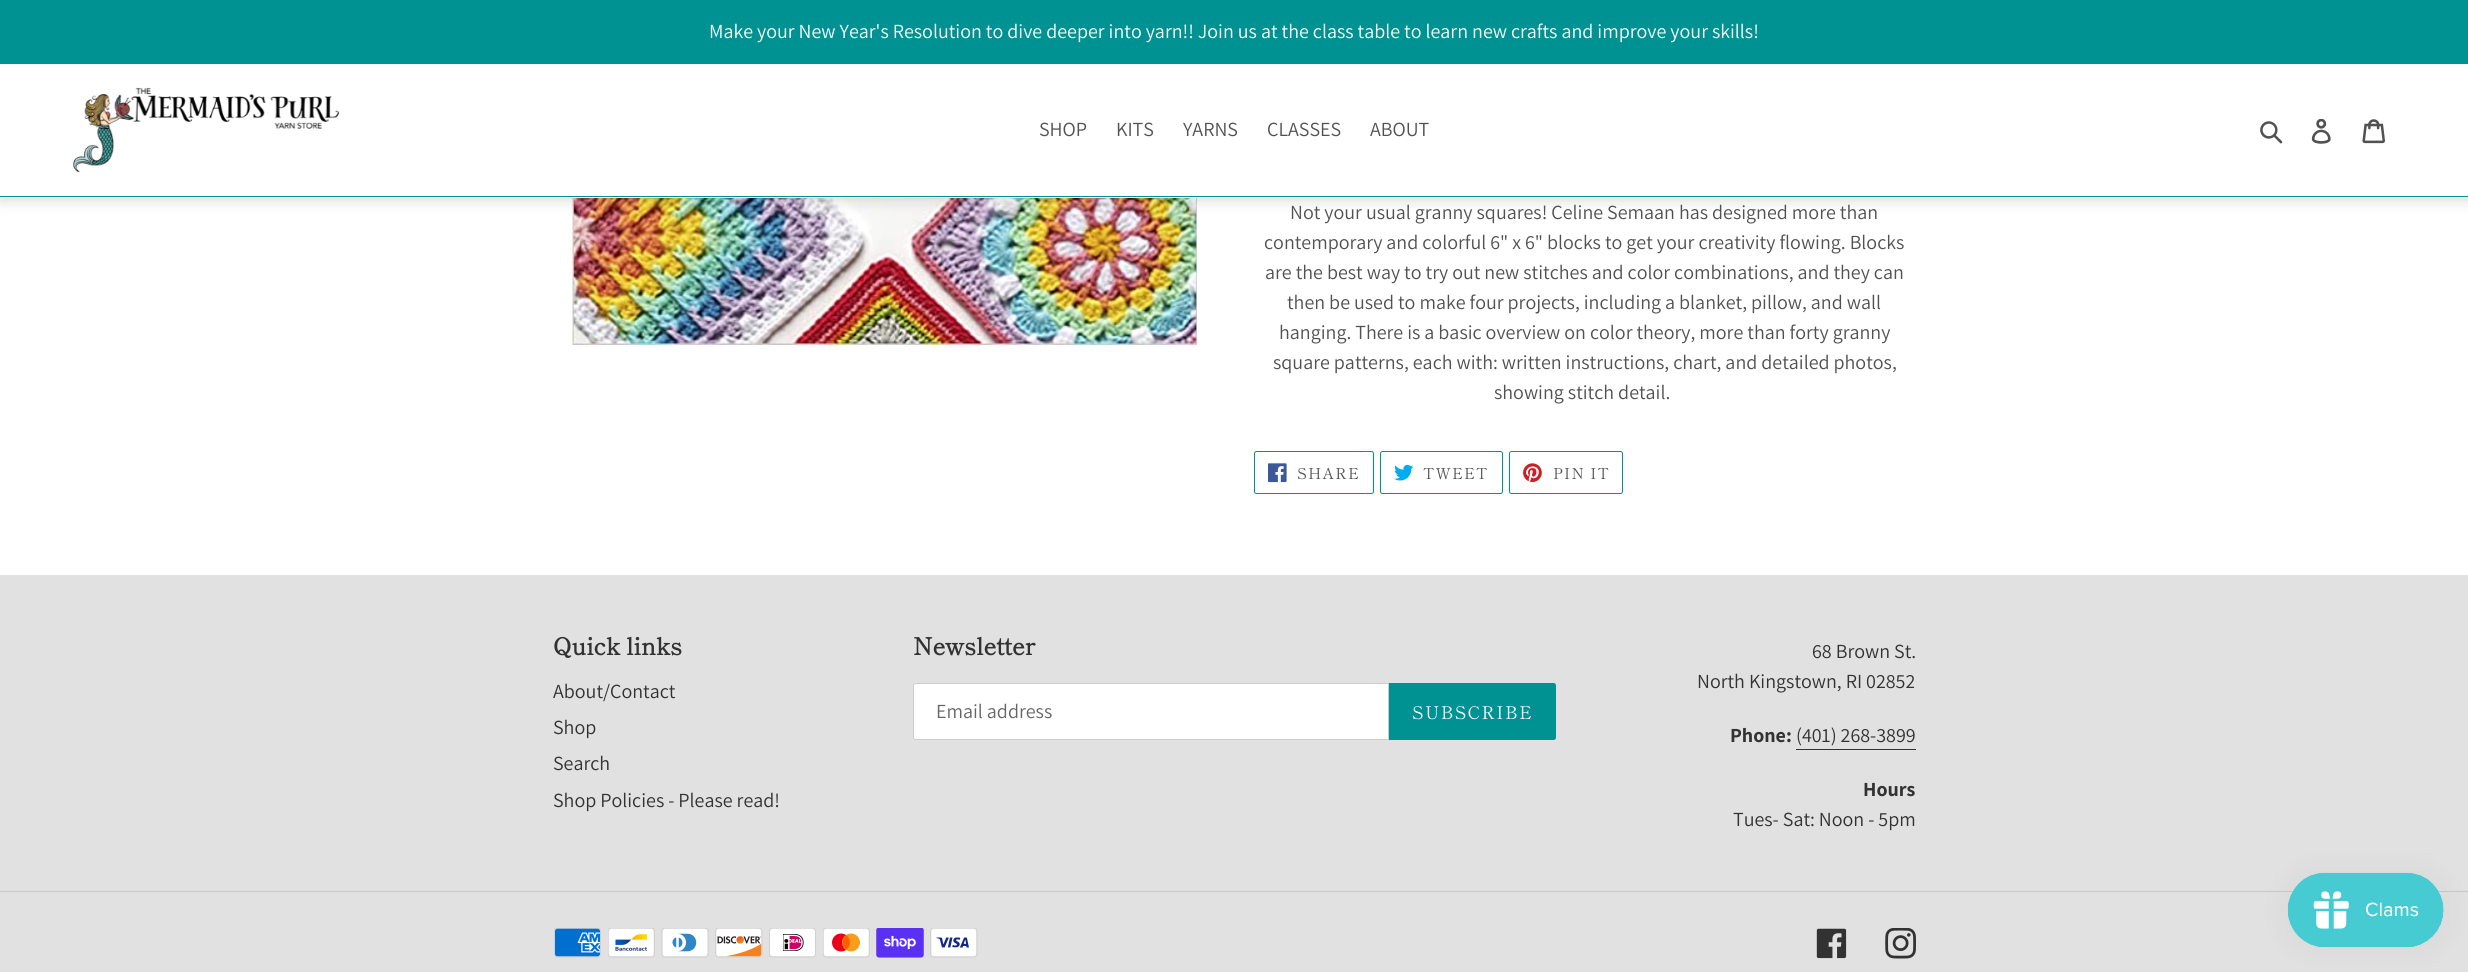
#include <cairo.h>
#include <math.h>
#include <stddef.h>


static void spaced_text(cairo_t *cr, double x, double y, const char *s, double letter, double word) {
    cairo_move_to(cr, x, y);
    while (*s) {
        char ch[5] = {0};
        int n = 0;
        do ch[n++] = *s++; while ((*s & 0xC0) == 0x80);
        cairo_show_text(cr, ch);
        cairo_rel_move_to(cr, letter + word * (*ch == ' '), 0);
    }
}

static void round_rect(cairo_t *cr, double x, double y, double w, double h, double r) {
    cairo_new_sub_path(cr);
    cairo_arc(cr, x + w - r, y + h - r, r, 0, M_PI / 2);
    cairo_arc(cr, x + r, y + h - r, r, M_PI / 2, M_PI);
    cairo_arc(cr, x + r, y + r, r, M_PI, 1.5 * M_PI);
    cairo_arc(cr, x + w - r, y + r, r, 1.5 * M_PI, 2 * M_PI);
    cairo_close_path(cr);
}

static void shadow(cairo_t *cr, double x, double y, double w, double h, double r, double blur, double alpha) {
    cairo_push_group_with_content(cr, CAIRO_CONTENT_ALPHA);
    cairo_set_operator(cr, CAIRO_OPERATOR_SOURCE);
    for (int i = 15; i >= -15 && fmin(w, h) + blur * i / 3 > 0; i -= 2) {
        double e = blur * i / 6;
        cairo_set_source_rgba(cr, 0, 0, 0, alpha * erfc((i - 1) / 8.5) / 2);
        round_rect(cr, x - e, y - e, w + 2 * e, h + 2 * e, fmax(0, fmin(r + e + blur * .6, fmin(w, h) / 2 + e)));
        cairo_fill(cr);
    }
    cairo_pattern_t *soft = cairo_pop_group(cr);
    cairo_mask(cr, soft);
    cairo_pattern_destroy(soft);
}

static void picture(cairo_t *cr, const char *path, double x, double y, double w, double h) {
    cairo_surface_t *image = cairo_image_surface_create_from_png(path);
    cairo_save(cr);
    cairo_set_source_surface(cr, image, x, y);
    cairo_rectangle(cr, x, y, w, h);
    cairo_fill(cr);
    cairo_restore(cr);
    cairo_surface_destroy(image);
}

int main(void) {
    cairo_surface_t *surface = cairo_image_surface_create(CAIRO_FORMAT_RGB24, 2468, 972);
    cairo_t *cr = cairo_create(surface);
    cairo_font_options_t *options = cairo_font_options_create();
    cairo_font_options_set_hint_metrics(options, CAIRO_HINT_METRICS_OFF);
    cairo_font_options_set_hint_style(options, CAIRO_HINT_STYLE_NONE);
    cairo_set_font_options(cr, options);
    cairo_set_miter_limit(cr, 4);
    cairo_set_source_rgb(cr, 1, 1, 1);
    cairo_paint(cr);
    picture(cr, "img5.png", 572, 198, 625, 147);
    cairo_set_source_rgb(cr, 0, 0, 0);
    shadow(cr, 0, 0, 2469, 198, 0, 8, 0.2);
    cairo_set_source_rgb(cr, 1, 1, 1);
    cairo_rectangle(cr, 0, 64, 2468, 134);
    cairo_fill(cr);
    cairo_set_source_rgb(cr, 0, 0.569, 0.573);
    cairo_rectangle(cr, 0, 0, 2468, 64);
    cairo_fill(cr);
    cairo_select_font_face(cr, "Assistant", CAIRO_FONT_SLANT_NORMAL, CAIRO_FONT_WEIGHT_NORMAL);
    cairo_set_font_size(cr, 20);
    cairo_set_source_rgb(cr, 1, 1, 1);
    cairo_move_to(cr, 709, 38);
    cairo_show_text(cr, "Make your New Year's Resolution to dive deeper into yarn!! Join us at the class table to learn new crafts and improve your skills!");
    cairo_set_source_rgb(cr, 0, 0.569, 0.573);
    cairo_rectangle(cr, 0, 196, 2468, 1);
    cairo_fill(cr);
    picture(cr, "img1.png", 73, 87, 267, 86);
    cairo_set_source_rgb(cr, 0.318, 0.318, 0.318);
    cairo_move_to(cr, 1039, 136);
    cairo_show_text(cr, "SHOP");
    cairo_move_to(cr, 1116, 136);
    cairo_show_text(cr, "KITS");
    cairo_move_to(cr, 1183, 136);
    cairo_show_text(cr, "YARNS");
    cairo_move_to(cr, 1267, 136);
    cairo_show_text(cr, "CLASSES");
    cairo_move_to(cr, 1370, 136);
    cairo_show_text(cr, "ABOUT");
    picture(cr, "img2.png", 2260, 121, 23, 23);
    picture(cr, "img3.png", 2311, 119, 20, 25);
    picture(cr, "img4.png", 2362, 119, 23, 25);
    cairo_move_to(cr, 1290, 219);
    cairo_show_text(cr, "Not your usual granny squares! Celine Semaan has designed more than");
    cairo_move_to(cr, 1264, 249);
    cairo_show_text(cr, "contemporary and colorful 6\" x 6\" blocks to get your creativity flowing. Blocks");
    cairo_move_to(cr, 1265, 279);
    cairo_show_text(cr, "are the best way to try out new stitches and color combinations, and they can");
    cairo_move_to(cr, 1287, 309);
    cairo_show_text(cr, "then be used to make four projects, including a blanket, pillow, and wall");
    cairo_move_to(cr, 1279, 339);
    cairo_show_text(cr, "hanging. There is a basic overview on color theory, more than forty granny");
    cairo_move_to(cr, 1273, 369);
    cairo_show_text(cr, "square patterns, each with: written instructions, chart, and detailed photos,");
    cairo_move_to(cr, 1494, 399);
    cairo_show_text(cr, "showing stitch detail.");
    round_rect(cr, 1254.5, 451.5, 119, 42, 2);
    cairo_set_source_rgb(cr, 0, 0.569, 0.573);
    cairo_set_line_width(cr, 1);
    cairo_stroke(cr);
    picture(cr, "img6.png", 1268, 463, 19, 20);
    cairo_select_font_face(cr, "Shippori Mincho", CAIRO_FONT_SLANT_NORMAL, CAIRO_FONT_WEIGHT_NORMAL);
    cairo_set_font_size(cr, 15);
    cairo_set_source_rgb(cr, 0.318, 0.318, 0.318);
    spaced_text(cr, 1297, 479, "SHARE", 1.25, 0);
    round_rect(cr, 1380.5, 451.5, 122, 42, 2);
    cairo_set_source_rgb(cr, 0, 0.569, 0.573);
    cairo_stroke(cr);
    picture(cr, "img7.png", 1394, 464, 20, 17);
    cairo_set_source_rgb(cr, 0.318, 0.318, 0.318);
    spaced_text(cr, 1423, 479, "TWEET", 1.25, 0);
    round_rect(cr, 1509.5, 451.5, 113, 42, 2);
    cairo_set_source_rgb(cr, 0, 0.569, 0.573);
    cairo_stroke(cr);
    picture(cr, "img8.png", 1523, 463, 19, 20);
    cairo_set_source_rgb(cr, 0.318, 0.318, 0.318);
    spaced_text(cr, 1553, 479, "PIN IT", 1.25, 0);
    cairo_set_source_rgb(cr, 0.882, 0.882, 0.882);
    cairo_rectangle(cr, 0, 575, 2468, 397);
    cairo_fill(cr);
    cairo_select_font_face(cr, "Shippori Mincho", CAIRO_FONT_SLANT_NORMAL, CAIRO_FONT_WEIGHT_BOLD);
    cairo_set_font_size(cr, 23.75);
    cairo_set_source_rgb(cr, 0.2, 0.196, 0.196);
    cairo_move_to(cr, 553, 655);
    cairo_show_text(cr, "Quick links");
    cairo_select_font_face(cr, "Assistant", CAIRO_FONT_SLANT_NORMAL, CAIRO_FONT_WEIGHT_NORMAL);
    cairo_set_font_size(cr, 20);
    cairo_move_to(cr, 553, 698);
    cairo_show_text(cr, "About/Contact");
    cairo_move_to(cr, 553, 734);
    cairo_show_text(cr, "Shop");
    cairo_move_to(cr, 553, 770);
    cairo_show_text(cr, "Search");
    cairo_move_to(cr, 553, 807);
    cairo_show_text(cr, "Shop Policies - Please read!");
    cairo_select_font_face(cr, "Shippori Mincho", CAIRO_FONT_SLANT_NORMAL, CAIRO_FONT_WEIGHT_BOLD);
    cairo_set_font_size(cr, 23.75);
    cairo_move_to(cr, 913, 655);
    cairo_show_text(cr, "Newsletter");
    cairo_set_source_rgb(cr, 1, 1, 1);
    cairo_new_path(cr);
    cairo_move_to(cr, 915.5, 683.5);
    cairo_line_to(cr, 1388.5, 683.5);
    cairo_line_to(cr, 1388.5, 739.5);
    cairo_line_to(cr, 915.5, 739.5);
    cairo_curve_to(cr, 914.5, 739.5, 913.5, 738.5, 913.5, 737.5);
    cairo_line_to(cr, 913.5, 685.5);
    cairo_curve_to(cr, 913.5, 684.5, 914.5, 683.5, 915.5, 683.5);
    cairo_close_path(cr);
    cairo_fill_preserve(cr);
    cairo_set_source_rgb(cr, 0.8, 0.8, 0.8);
    cairo_stroke(cr);
    cairo_select_font_face(cr, "Assistant", CAIRO_FONT_SLANT_NORMAL, CAIRO_FONT_WEIGHT_NORMAL);
    cairo_set_font_size(cr, 20);
    cairo_set_source_rgb(cr, 0.4, 0.4, 0.4);
    cairo_move_to(cr, 936, 718);
    cairo_show_text(cr, "Email address");
    cairo_set_source_rgb(cr, 0, 0.569, 0.573);
    cairo_new_path(cr);
    cairo_move_to(cr, 1389, 683);
    cairo_line_to(cr, 1553.5, 683);
    cairo_curve_to(cr, 1555, 683, 1556, 684, 1556, 685.5);
    cairo_line_to(cr, 1556, 737.5);
    cairo_curve_to(cr, 1556, 739, 1555, 740, 1553.5, 740);
    cairo_line_to(cr, 1389, 740);
    cairo_close_path(cr);
    cairo_fill(cr);
    cairo_select_font_face(cr, "Shippori Mincho", CAIRO_FONT_SLANT_NORMAL, CAIRO_FONT_WEIGHT_NORMAL);
    cairo_set_font_size(cr, 17.5);
    cairo_set_source_rgb(cr, 1, 1, 1);
    spaced_text(cr, 1412, 719, "SUBSCRIBE", 1.5, 0);
    cairo_select_font_face(cr, "Assistant", CAIRO_FONT_SLANT_NORMAL, CAIRO_FONT_WEIGHT_NORMAL);
    cairo_set_font_size(cr, 20);
    cairo_set_source_rgb(cr, 0.2, 0.196, 0.196);
    cairo_move_to(cr, 1812, 658);
    cairo_show_text(cr, "68 Brown St.");
    cairo_move_to(cr, 1697, 688);
    cairo_show_text(cr, "North Kingstown, RI 02852");
    cairo_select_font_face(cr, "Assistant", CAIRO_FONT_SLANT_NORMAL, CAIRO_FONT_WEIGHT_BOLD);
    cairo_move_to(cr, 1730, 742);
    cairo_show_text(cr, "Phone:");
    cairo_select_font_face(cr, "Assistant", CAIRO_FONT_SLANT_NORMAL, CAIRO_FONT_WEIGHT_NORMAL);
    cairo_move_to(cr, 1796, 742);
    cairo_show_text(cr, "(401) 268-3899");
    cairo_rectangle(cr, 1796, 749, 120, 1);
    cairo_fill(cr);
    cairo_select_font_face(cr, "Assistant", CAIRO_FONT_SLANT_NORMAL, CAIRO_FONT_WEIGHT_BOLD);
    cairo_move_to(cr, 1863, 796);
    cairo_show_text(cr, "Hours");
    cairo_select_font_face(cr, "Assistant", CAIRO_FONT_SLANT_NORMAL, CAIRO_FONT_WEIGHT_NORMAL);
    cairo_move_to(cr, 1733, 826);
    cairo_show_text(cr, "Tues- Sat: Noon - 5pm");
    cairo_set_source_rgb(cr, 0.784, 0.784, 0.784);
    cairo_rectangle(cr, 0, 891, 2468, 1);
    cairo_fill(cr);
    picture(cr, "img9.png", 554, 928, 47, 30);
    picture(cr, "img10.png", 608, 928, 47, 30);
    picture(cr, "img11.png", 661, 928, 48, 30);
    picture(cr, "img12.png", 715, 928, 48, 30);
    picture(cr, "img13.png", 769, 928, 47, 30);
    picture(cr, "img14.png", 823, 928, 47, 30);
    picture(cr, "img15.png", 876, 928, 48, 30);
    picture(cr, "img16.png", 930, 928, 48, 30);
    picture(cr, "img17.png", 1816, 928, 31, 31);
    picture(cr, "img18.png", 1885, 928, 31, 31);
    cairo_set_source_rgb(cr, 0, 0, 0);
    shadow(cr, 2288, 873, 156, 75, 37.5, 15.5, 0.05);
    picture(cr, "img19.png", 2287, 872, 157, 76);
    cairo_surface_write_to_png(surface, "page.png");
    cairo_font_options_destroy(options);
    cairo_destroy(cr);
    cairo_surface_destroy(surface);
    return 0;
}
